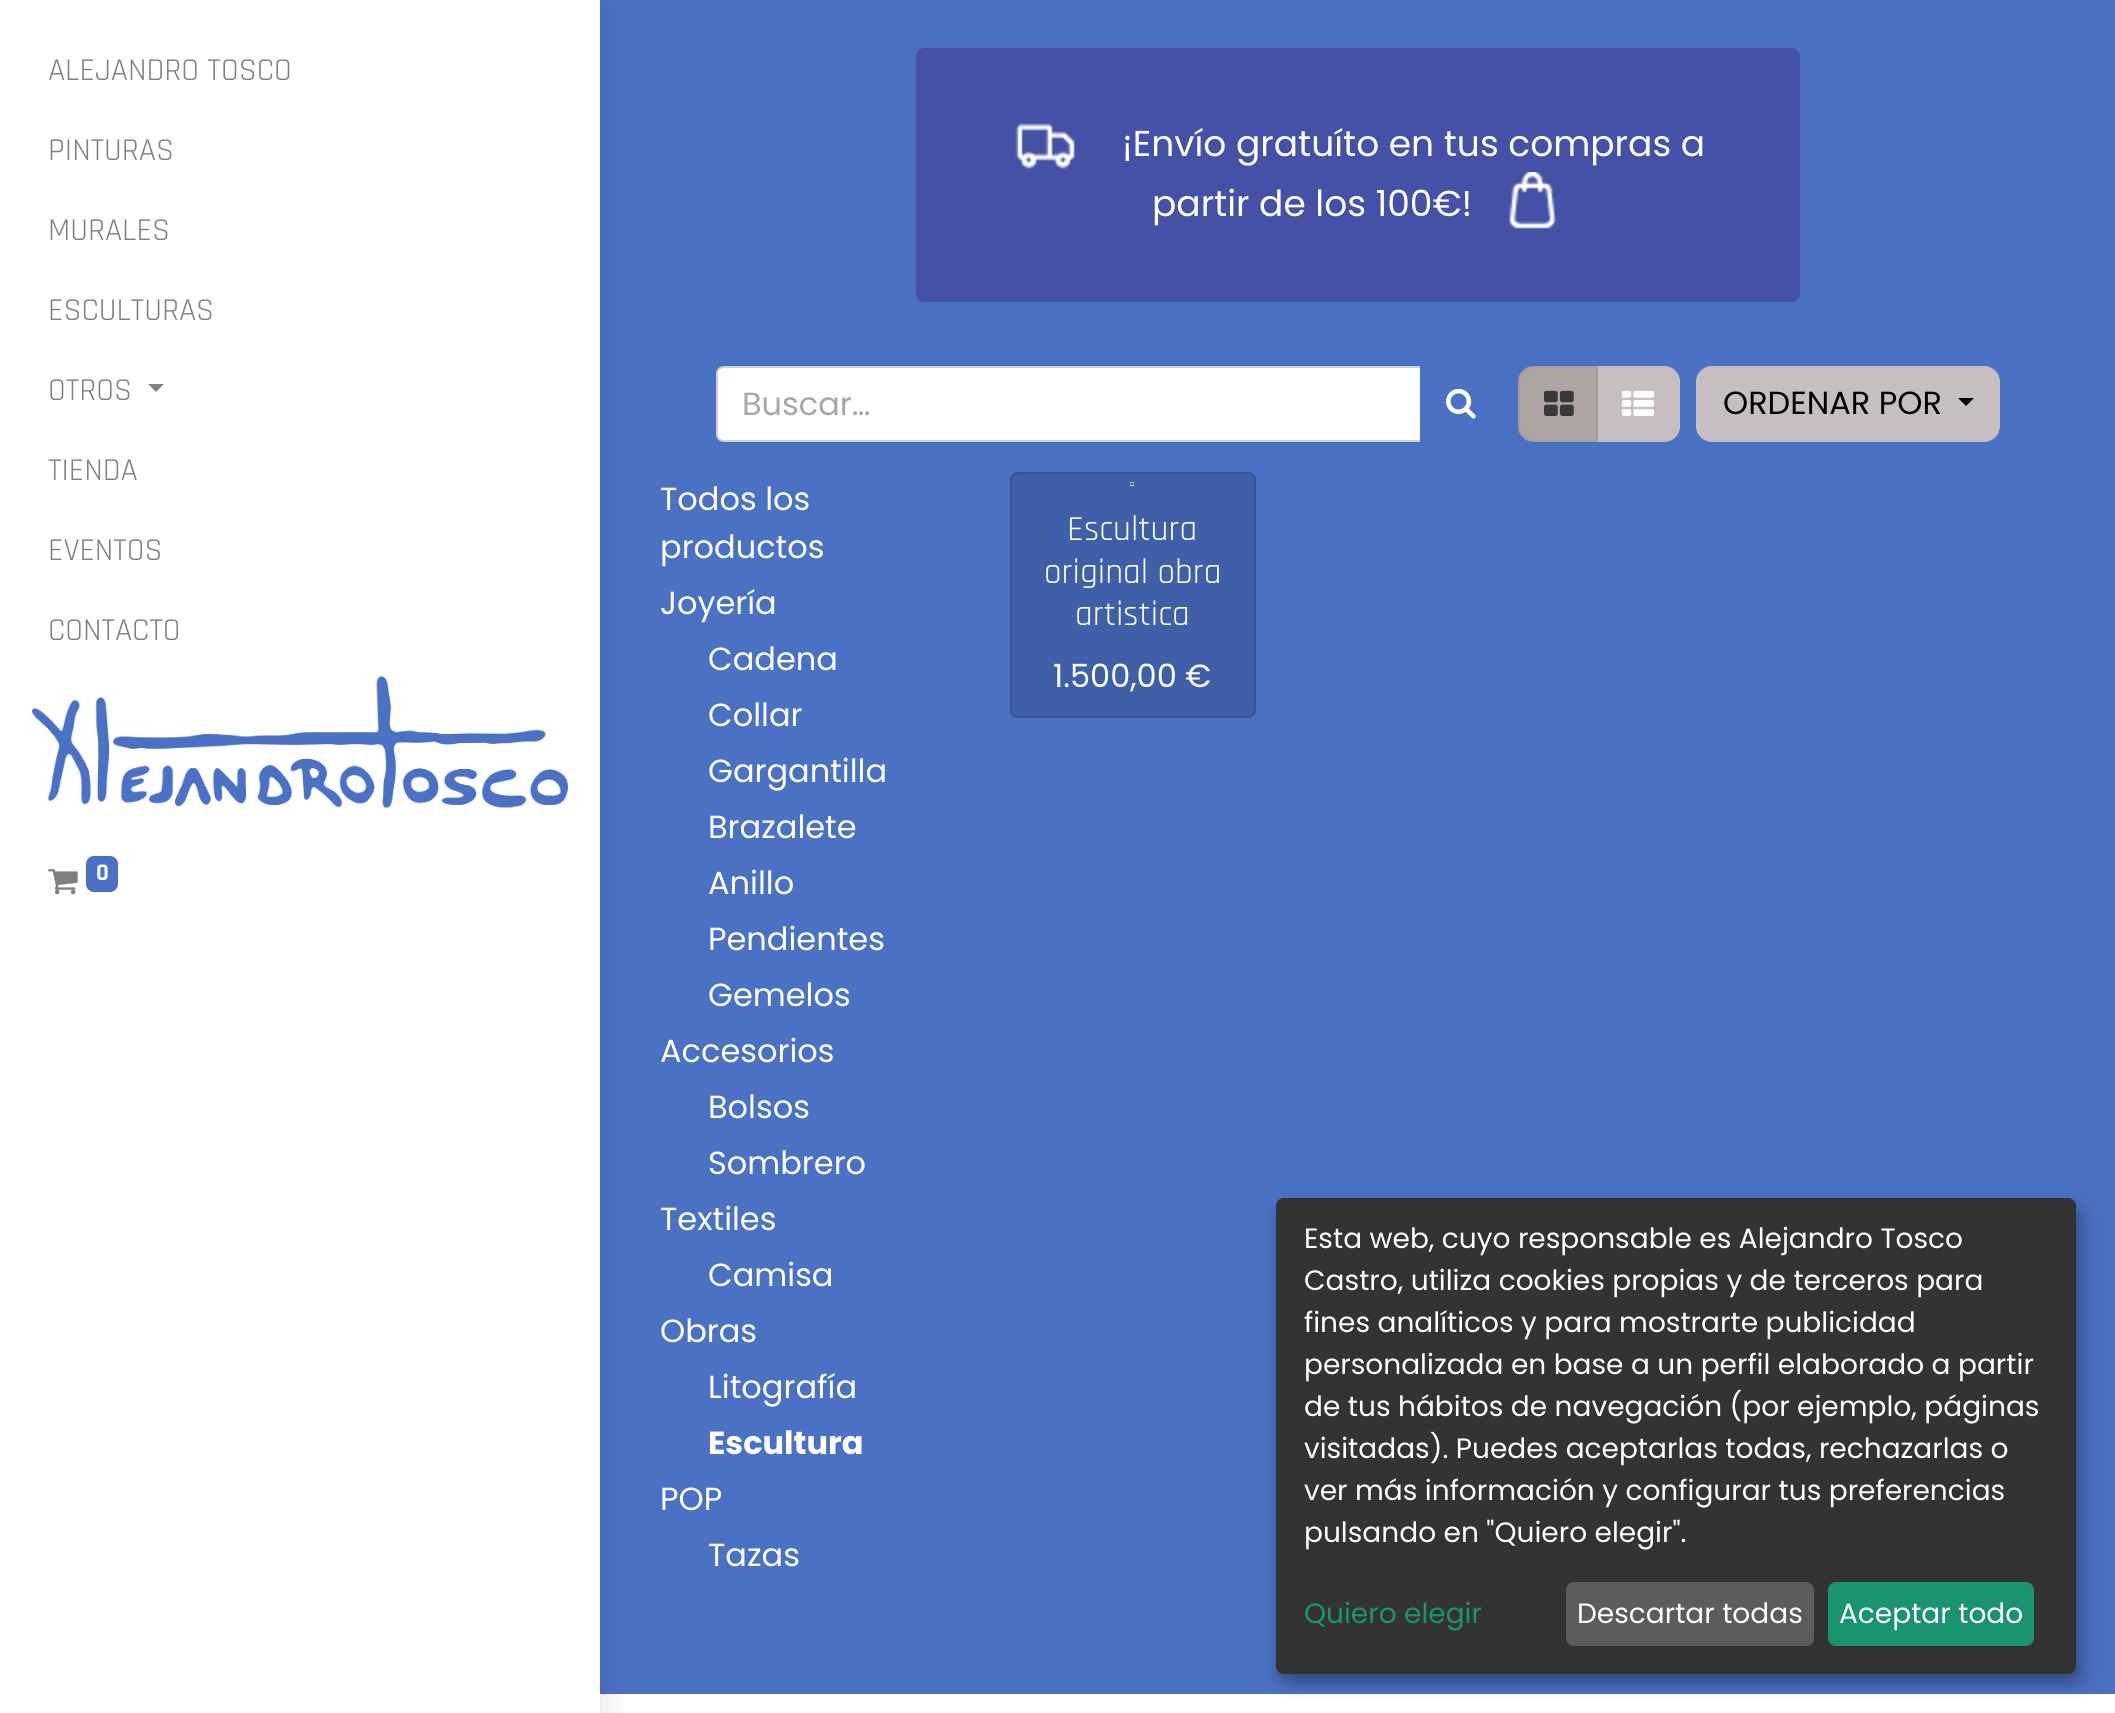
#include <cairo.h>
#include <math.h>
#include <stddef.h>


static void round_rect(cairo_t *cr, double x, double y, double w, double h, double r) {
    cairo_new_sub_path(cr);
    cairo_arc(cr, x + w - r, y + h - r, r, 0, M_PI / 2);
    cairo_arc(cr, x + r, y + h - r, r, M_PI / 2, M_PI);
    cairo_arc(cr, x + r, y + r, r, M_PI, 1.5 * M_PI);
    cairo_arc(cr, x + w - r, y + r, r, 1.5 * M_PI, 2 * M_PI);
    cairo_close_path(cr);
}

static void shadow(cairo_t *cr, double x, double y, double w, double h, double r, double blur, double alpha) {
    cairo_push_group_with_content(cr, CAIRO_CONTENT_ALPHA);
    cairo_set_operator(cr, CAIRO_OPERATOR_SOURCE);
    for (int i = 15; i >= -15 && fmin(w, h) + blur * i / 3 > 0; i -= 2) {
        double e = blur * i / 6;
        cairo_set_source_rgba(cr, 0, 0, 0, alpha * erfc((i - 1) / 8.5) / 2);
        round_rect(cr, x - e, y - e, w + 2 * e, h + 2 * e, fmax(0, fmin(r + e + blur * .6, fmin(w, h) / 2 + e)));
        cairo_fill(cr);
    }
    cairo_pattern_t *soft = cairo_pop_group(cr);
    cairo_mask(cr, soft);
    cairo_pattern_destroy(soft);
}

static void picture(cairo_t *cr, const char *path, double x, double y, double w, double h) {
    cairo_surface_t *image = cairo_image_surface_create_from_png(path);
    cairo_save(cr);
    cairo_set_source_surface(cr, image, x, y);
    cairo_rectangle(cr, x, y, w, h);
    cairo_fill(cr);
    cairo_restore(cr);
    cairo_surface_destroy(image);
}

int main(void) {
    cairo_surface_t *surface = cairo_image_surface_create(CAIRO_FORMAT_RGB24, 2115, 1713);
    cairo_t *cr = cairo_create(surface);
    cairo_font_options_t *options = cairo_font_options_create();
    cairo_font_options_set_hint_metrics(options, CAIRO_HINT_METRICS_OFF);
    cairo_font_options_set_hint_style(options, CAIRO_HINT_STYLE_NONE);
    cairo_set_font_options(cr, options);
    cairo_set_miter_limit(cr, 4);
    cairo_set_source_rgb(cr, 0.294, 0.443, 0.769);
    cairo_paint(cr);
    cairo_set_source_rgb(cr, 1, 1, 1);
    cairo_rectangle(cr, 600, 1694, 1515, 19);
    cairo_fill(cr);
    cairo_set_source_rgb(cr, 0, 0, 0);
    shadow(cr, 0, 16, 600, 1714, 0, 16, 0.15);
    cairo_set_source_rgb(cr, 1, 1, 1);
    cairo_rectangle(cr, 0, 0, 600, 1713);
    cairo_fill(cr);
    cairo_select_font_face(cr, "Rajdhani", CAIRO_FONT_SLANT_NORMAL, CAIRO_FONT_WEIGHT_NORMAL);
    cairo_set_font_size(cr, 32);
    cairo_set_source_rgb(cr, 0.502, 0.502, 0.502);
    cairo_move_to(cr, 48, 80);
    cairo_show_text(cr, "ALEJANDRO TOSCO");
    cairo_move_to(cr, 48, 160);
    cairo_show_text(cr, "PINTURAS");
    cairo_move_to(cr, 48, 240);
    cairo_show_text(cr, "MURALES");
    cairo_move_to(cr, 48, 320);
    cairo_show_text(cr, "ESCULTURAS");
    cairo_move_to(cr, 48, 400);
    cairo_show_text(cr, "OTROS");
    cairo_new_path(cr);
    cairo_move_to(cr, 148, 384);
    cairo_line_to(cr, 164, 384);
    cairo_line_to(cr, 156, 392);
    cairo_close_path(cr);
    cairo_fill(cr);
    cairo_move_to(cr, 48, 480);
    cairo_show_text(cr, "TIENDA");
    cairo_move_to(cr, 48, 560);
    cairo_show_text(cr, "EVENTOS");
    cairo_move_to(cr, 48, 640);
    cairo_show_text(cr, "CONTACTO");
    picture(cr, "img1.png", 32, 676, 536, 132);
    picture(cr, "img2.png", 48, 869, 30, 26);
    cairo_set_source_rgb(cr, 0.294, 0.443, 0.769);
    round_rect(cr, 86, 856, 32, 36, 8);
    cairo_fill(cr);
    cairo_select_font_face(cr, "Rajdhani", CAIRO_FONT_SLANT_NORMAL, CAIRO_FONT_WEIGHT_BOLD);
    cairo_set_font_size(cr, 24);
    cairo_set_source_rgb(cr, 1, 1, 1);
    cairo_move_to(cr, 96, 880);
    cairo_show_text(cr, "0");
    cairo_set_source_rgb(cr, 0.267, 0.318, 0.651);
    round_rect(cr, 916, 48, 884, 254, 8);
    cairo_fill(cr);
    picture(cr, "img3.png", 1015, 123, 60, 46);
    cairo_select_font_face(cr, "Poppins", CAIRO_FONT_SLANT_NORMAL, CAIRO_FONT_WEIGHT_NORMAL);
    cairo_set_font_size(cr, 36);
    cairo_set_source_rgb(cr, 1, 1, 1);
    cairo_move_to(cr, 1122, 156);
    cairo_show_text(cr, "¡Envío gratuíto en tus compras a");
    cairo_move_to(cr, 1152, 216);
    cairo_show_text(cr, "partir de los 100€!");
    picture(cr, "img4.png", 1509, 172, 48, 57);
    cairo_new_path(cr);
    cairo_move_to(cr, 724, 367);
    cairo_line_to(cr, 1421, 367);
    cairo_line_to(cr, 1421, 441);
    cairo_line_to(cr, 724, 441);
    cairo_curve_to(cr, 720, 441, 717, 438, 717, 434);
    cairo_line_to(cr, 717, 374);
    cairo_curve_to(cr, 717, 370, 720, 367, 724, 367);
    cairo_close_path(cr);
    cairo_fill_preserve(cr);
    cairo_set_source_rgb(cr, 0.82, 0.82, 0.82);
    cairo_stroke(cr);
    cairo_set_font_size(cr, 32);
    cairo_set_source_rgb(cr, 0.655, 0.655, 0.655);
    cairo_move_to(cr, 742, 415);
    cairo_show_text(cr, "Buscar…");
    cairo_set_source_rgb(cr, 0.294, 0.443, 0.769);
    cairo_new_path(cr);
    cairo_move_to(cr, 1420, 366);
    cairo_line_to(cr, 1494, 366);
    cairo_curve_to(cr, 1498.5, 366, 1502, 369.5, 1502, 374);
    cairo_line_to(cr, 1502, 434);
    cairo_curve_to(cr, 1502, 438.5, 1498.5, 442, 1494, 442);
    cairo_line_to(cr, 1420, 442);
    cairo_close_path(cr);
    cairo_fill(cr);
    picture(cr, "img5.png", 1446, 388, 30, 31);
    cairo_set_source_rgb(cr, 0.78, 0.749, 0.749);
    cairo_new_path(cr);
    cairo_move_to(cr, 1597, 367);
    cairo_line_to(cr, 1664, 367);
    cairo_curve_to(cr, 1672.5, 367, 1679, 373.5, 1679, 382);
    cairo_line_to(cr, 1679, 426);
    cairo_curve_to(cr, 1679, 434.5, 1672.5, 441, 1664, 441);
    cairo_line_to(cr, 1597, 441);
    cairo_close_path(cr);
    cairo_fill_preserve(cr);
    cairo_stroke(cr);
    cairo_set_source_rgb(cr, 0.686, 0.643, 0.643);
    cairo_new_path(cr);
    cairo_move_to(cr, 1534, 367);
    cairo_line_to(cr, 1597, 367);
    cairo_line_to(cr, 1597, 441);
    cairo_line_to(cr, 1534, 441);
    cairo_curve_to(cr, 1525.5, 441, 1519, 434.5, 1519, 426);
    cairo_line_to(cr, 1519, 382);
    cairo_curve_to(cr, 1519, 373.5, 1525.5, 367, 1534, 367);
    cairo_close_path(cr);
    cairo_fill_preserve(cr);
    cairo_set_source_rgb(cr, 0.663, 0.616, 0.616);
    cairo_stroke(cr);
    picture(cr, "img6.png", 1544, 390, 30, 26);
    picture(cr, "img7.png", 1622, 390, 32, 26);
    cairo_set_source_rgb(cr, 0.78, 0.749, 0.749);
    round_rect(cr, 1697, 367, 302, 74, 15);
    cairo_fill_preserve(cr);
    cairo_stroke(cr);
    cairo_set_source_rgb(cr, 0, 0, 0);
    cairo_move_to(cr, 1723, 414);
    cairo_show_text(cr, "ORDENAR POR");
    cairo_new_path(cr);
    cairo_move_to(cr, 1958, 398);
    cairo_line_to(cr, 1974, 398);
    cairo_line_to(cr, 1966, 406);
    cairo_close_path(cr);
    cairo_fill(cr);
    cairo_set_source_rgb(cr, 1, 1, 1);
    cairo_move_to(cr, 660, 510);
    cairo_show_text(cr, "Todos los");
    cairo_move_to(cr, 660, 558);
    cairo_show_text(cr, "productos");
    cairo_move_to(cr, 660, 614);
    cairo_show_text(cr, "Joyería");
    cairo_move_to(cr, 708, 670);
    cairo_show_text(cr, "Cadena");
    cairo_move_to(cr, 708, 726);
    cairo_show_text(cr, "Collar");
    cairo_move_to(cr, 708, 782);
    cairo_show_text(cr, "Gargantilla");
    cairo_move_to(cr, 708, 838);
    cairo_show_text(cr, "Brazalete");
    cairo_move_to(cr, 708, 894);
    cairo_show_text(cr, "Anillo");
    cairo_move_to(cr, 708, 950);
    cairo_show_text(cr, "Pendientes");
    cairo_move_to(cr, 708, 1006);
    cairo_show_text(cr, "Gemelos");
    cairo_move_to(cr, 660, 1062);
    cairo_show_text(cr, "Accesorios");
    cairo_move_to(cr, 708, 1118);
    cairo_show_text(cr, "Bolsos");
    cairo_move_to(cr, 708, 1174);
    cairo_show_text(cr, "Sombrero");
    cairo_move_to(cr, 660, 1230);
    cairo_show_text(cr, "Textiles");
    cairo_move_to(cr, 708, 1286);
    cairo_show_text(cr, "Camisa");
    cairo_move_to(cr, 660, 1342);
    cairo_show_text(cr, "Obras");
    cairo_move_to(cr, 708, 1398);
    cairo_show_text(cr, "Litografía");
    cairo_select_font_face(cr, "Poppins", CAIRO_FONT_SLANT_NORMAL, CAIRO_FONT_WEIGHT_BOLD);
    cairo_move_to(cr, 708, 1454);
    cairo_show_text(cr, "Escultura");
    cairo_select_font_face(cr, "Poppins", CAIRO_FONT_SLANT_NORMAL, CAIRO_FONT_WEIGHT_NORMAL);
    cairo_move_to(cr, 660, 1510);
    cairo_show_text(cr, "POP");
    cairo_move_to(cr, 708, 1566);
    cairo_show_text(cr, "Tazas");
    cairo_set_source_rgb(cr, 0.247, 0.376, 0.659);
    round_rect(cr, 1010, 472, 246, 246, 8);
    cairo_fill(cr);
    round_rect(cr, 1011, 473, 244, 244, 7);
    cairo_set_source_rgba(cr, 0, 0, 0, 0.12);
    cairo_stroke(cr);
    picture(cr, "img8.png", 1130, 482, 4, 4);
    cairo_select_font_face(cr, "Rajdhani", CAIRO_FONT_SLANT_NORMAL, CAIRO_FONT_WEIGHT_NORMAL);
    cairo_set_font_size(cr, 35.25);
    cairo_set_source_rgb(cr, 1, 1, 1);
    cairo_move_to(cr, 1067, 540);
    cairo_show_text(cr, "Escultura");
    cairo_move_to(cr, 1044, 583);
    cairo_show_text(cr, "original obra");
    cairo_move_to(cr, 1075, 625);
    cairo_show_text(cr, "artistica");
    cairo_select_font_face(cr, "Poppins", CAIRO_FONT_SLANT_NORMAL, CAIRO_FONT_WEIGHT_NORMAL);
    cairo_set_font_size(cr, 32);
    cairo_move_to(cr, 1053, 687);
    cairo_show_text(cr, "1.500,00 €");
    cairo_set_source_rgb(cr, 0, 0, 0);
    shadow(cr, 1286, 1208, 800, 476, 8, 10, 0.19);
    shadow(cr, 1276, 1206, 800, 476, 8, 6, 0.2);
    cairo_set_source_rgb(cr, 0.2, 0.2, 0.2);
    round_rect(cr, 1276, 1198, 800, 476, 8);
    cairo_fill(cr);
    cairo_set_font_size(cr, 28);
    cairo_set_source_rgb(cr, 1, 1, 1);
    cairo_move_to(cr, 1304, 1248);
    cairo_show_text(cr, "Esta web, cuyo responsable es Alejandro Tosco");
    cairo_move_to(cr, 1304, 1290);
    cairo_show_text(cr, "Castro, utiliza cookies propias y de terceros para");
    cairo_move_to(cr, 1304, 1332);
    cairo_show_text(cr, "fines analíticos y para mostrarte publicidad");
    cairo_move_to(cr, 1304, 1374);
    cairo_show_text(cr, "personalizada en base a un perfil elaborado a partir");
    cairo_move_to(cr, 1304, 1416);
    cairo_show_text(cr, "de tus hábitos de navegación (por ejemplo, páginas");
    cairo_move_to(cr, 1304, 1458);
    cairo_show_text(cr, "visitadas). Puedes aceptarlas todas, rechazarlas o");
    cairo_move_to(cr, 1304, 1500);
    cairo_show_text(cr, "ver más información y configurar tus preferencias");
    cairo_move_to(cr, 1304, 1542);
    cairo_show_text(cr, "pulsando en \"Quiero elegir\".");
    cairo_set_source_rgb(cr, 0.102, 0.576, 0.435);
    cairo_move_to(cr, 1304, 1623);
    cairo_show_text(cr, "Quiero elegir");
    cairo_set_source_rgb(cr, 0.361, 0.361, 0.361);
    round_rect(cr, 1566, 1582, 248, 64, 8);
    cairo_fill(cr);
    cairo_set_source_rgb(cr, 1, 1, 1);
    cairo_move_to(cr, 1577, 1623);
    cairo_show_text(cr, "Descartar todas");
    cairo_set_source_rgb(cr, 0.102, 0.576, 0.435);
    round_rect(cr, 1828, 1582, 206, 64, 8);
    cairo_fill(cr);
    cairo_set_source_rgb(cr, 1, 1, 1);
    cairo_move_to(cr, 1839, 1623);
    cairo_show_text(cr, "Aceptar todo");
    cairo_surface_write_to_png(surface, "page.png");
    cairo_font_options_destroy(options);
    cairo_destroy(cr);
    cairo_surface_destroy(surface);
    return 0;
}
